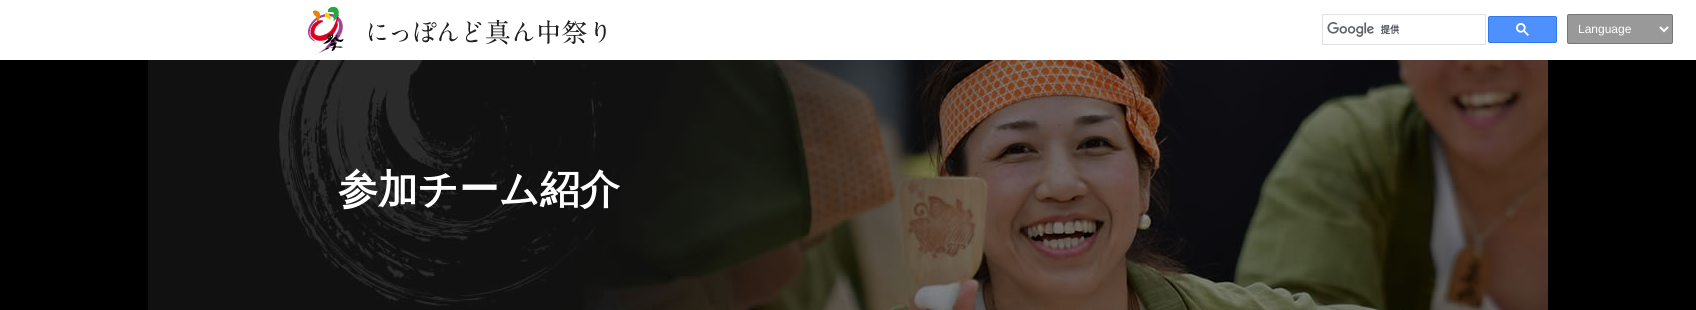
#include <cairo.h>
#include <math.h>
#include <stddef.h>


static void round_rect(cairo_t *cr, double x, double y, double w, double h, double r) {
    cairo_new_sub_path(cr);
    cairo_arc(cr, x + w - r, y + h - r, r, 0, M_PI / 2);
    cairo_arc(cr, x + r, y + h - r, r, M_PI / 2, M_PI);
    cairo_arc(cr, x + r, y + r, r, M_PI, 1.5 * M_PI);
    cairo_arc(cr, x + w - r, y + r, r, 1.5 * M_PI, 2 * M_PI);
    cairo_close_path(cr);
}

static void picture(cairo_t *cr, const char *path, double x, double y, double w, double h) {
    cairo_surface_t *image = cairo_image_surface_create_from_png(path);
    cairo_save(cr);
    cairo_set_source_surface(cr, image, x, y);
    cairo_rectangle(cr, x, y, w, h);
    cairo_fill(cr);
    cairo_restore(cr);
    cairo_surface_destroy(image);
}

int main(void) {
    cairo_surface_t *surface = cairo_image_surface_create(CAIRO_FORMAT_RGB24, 1696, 310);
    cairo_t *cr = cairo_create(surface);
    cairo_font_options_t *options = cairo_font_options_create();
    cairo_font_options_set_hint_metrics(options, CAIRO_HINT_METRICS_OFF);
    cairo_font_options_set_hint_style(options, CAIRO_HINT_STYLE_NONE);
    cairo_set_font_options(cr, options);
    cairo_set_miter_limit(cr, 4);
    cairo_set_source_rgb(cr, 1, 1, 1);
    cairo_paint(cr);
    picture(cr, "img1.png", 308, 7, 298, 48);
    cairo_rectangle(cr, 1322.5, 14.5, 163, 30);
    cairo_set_source_rgb(cr, 0.875, 0.882, 0.898);
    cairo_set_line_width(cr, 1);
    cairo_stroke(cr);
    picture(cr, "img2.png", 1327, 22, 73, 15);
    cairo_set_source_rgb(cr, 0.302, 0.565, 0.996);
    round_rect(cr, 1488.5, 16.5, 68, 26, 1.5);
    cairo_fill_preserve(cr);
    cairo_set_source_rgb(cr, 0.188, 0.475, 0.929);
    cairo_stroke(cr);
    picture(cr, "img3.png", 1516, 23, 13, 13);
    cairo_set_source_rgb(cr, 0.6, 0.6, 0.6);
    round_rect(cr, 1567.5, 14.5, 105, 29, 1.5);
    cairo_fill_preserve(cr);
    cairo_set_source_rgb(cr, 0.463, 0.463, 0.463);
    cairo_stroke(cr);
    cairo_new_path(cr);
    cairo_move_to(cr, 1660, 27);
    cairo_line_to(cr, 1664, 31);
    cairo_line_to(cr, 1668, 27);
    cairo_set_source_rgb(cr, 1, 1, 1);
    cairo_set_line_width(cr, 2);
    cairo_stroke(cr);
    cairo_select_font_face(cr, "Liberation Sans", CAIRO_FONT_SLANT_NORMAL, CAIRO_FONT_WEIGHT_NORMAL);
    cairo_set_font_size(cr, 12);
    cairo_move_to(cr, 1578, 33);
    cairo_show_text(cr, "Language");
    cairo_set_source_rgb(cr, 0, 0, 0);
    cairo_rectangle(cr, 0, 60, 1696, 250);
    cairo_fill(cr);
    picture(cr, "img4.png", 148, 60, 1400, 250);
    cairo_select_font_face(cr, "WenQuanYi Zen Hei", CAIRO_FONT_SLANT_NORMAL, CAIRO_FONT_WEIGHT_BOLD);
    cairo_set_font_size(cr, 40);
    cairo_set_source_rgb(cr, 1, 1, 1);
    cairo_move_to(cr, 338, 203);
    cairo_show_text(cr, "参加チーム紹介");
    cairo_surface_write_to_png(surface, "page.png");
    cairo_font_options_destroy(options);
    cairo_destroy(cr);
    cairo_surface_destroy(surface);
    return 0;
}
